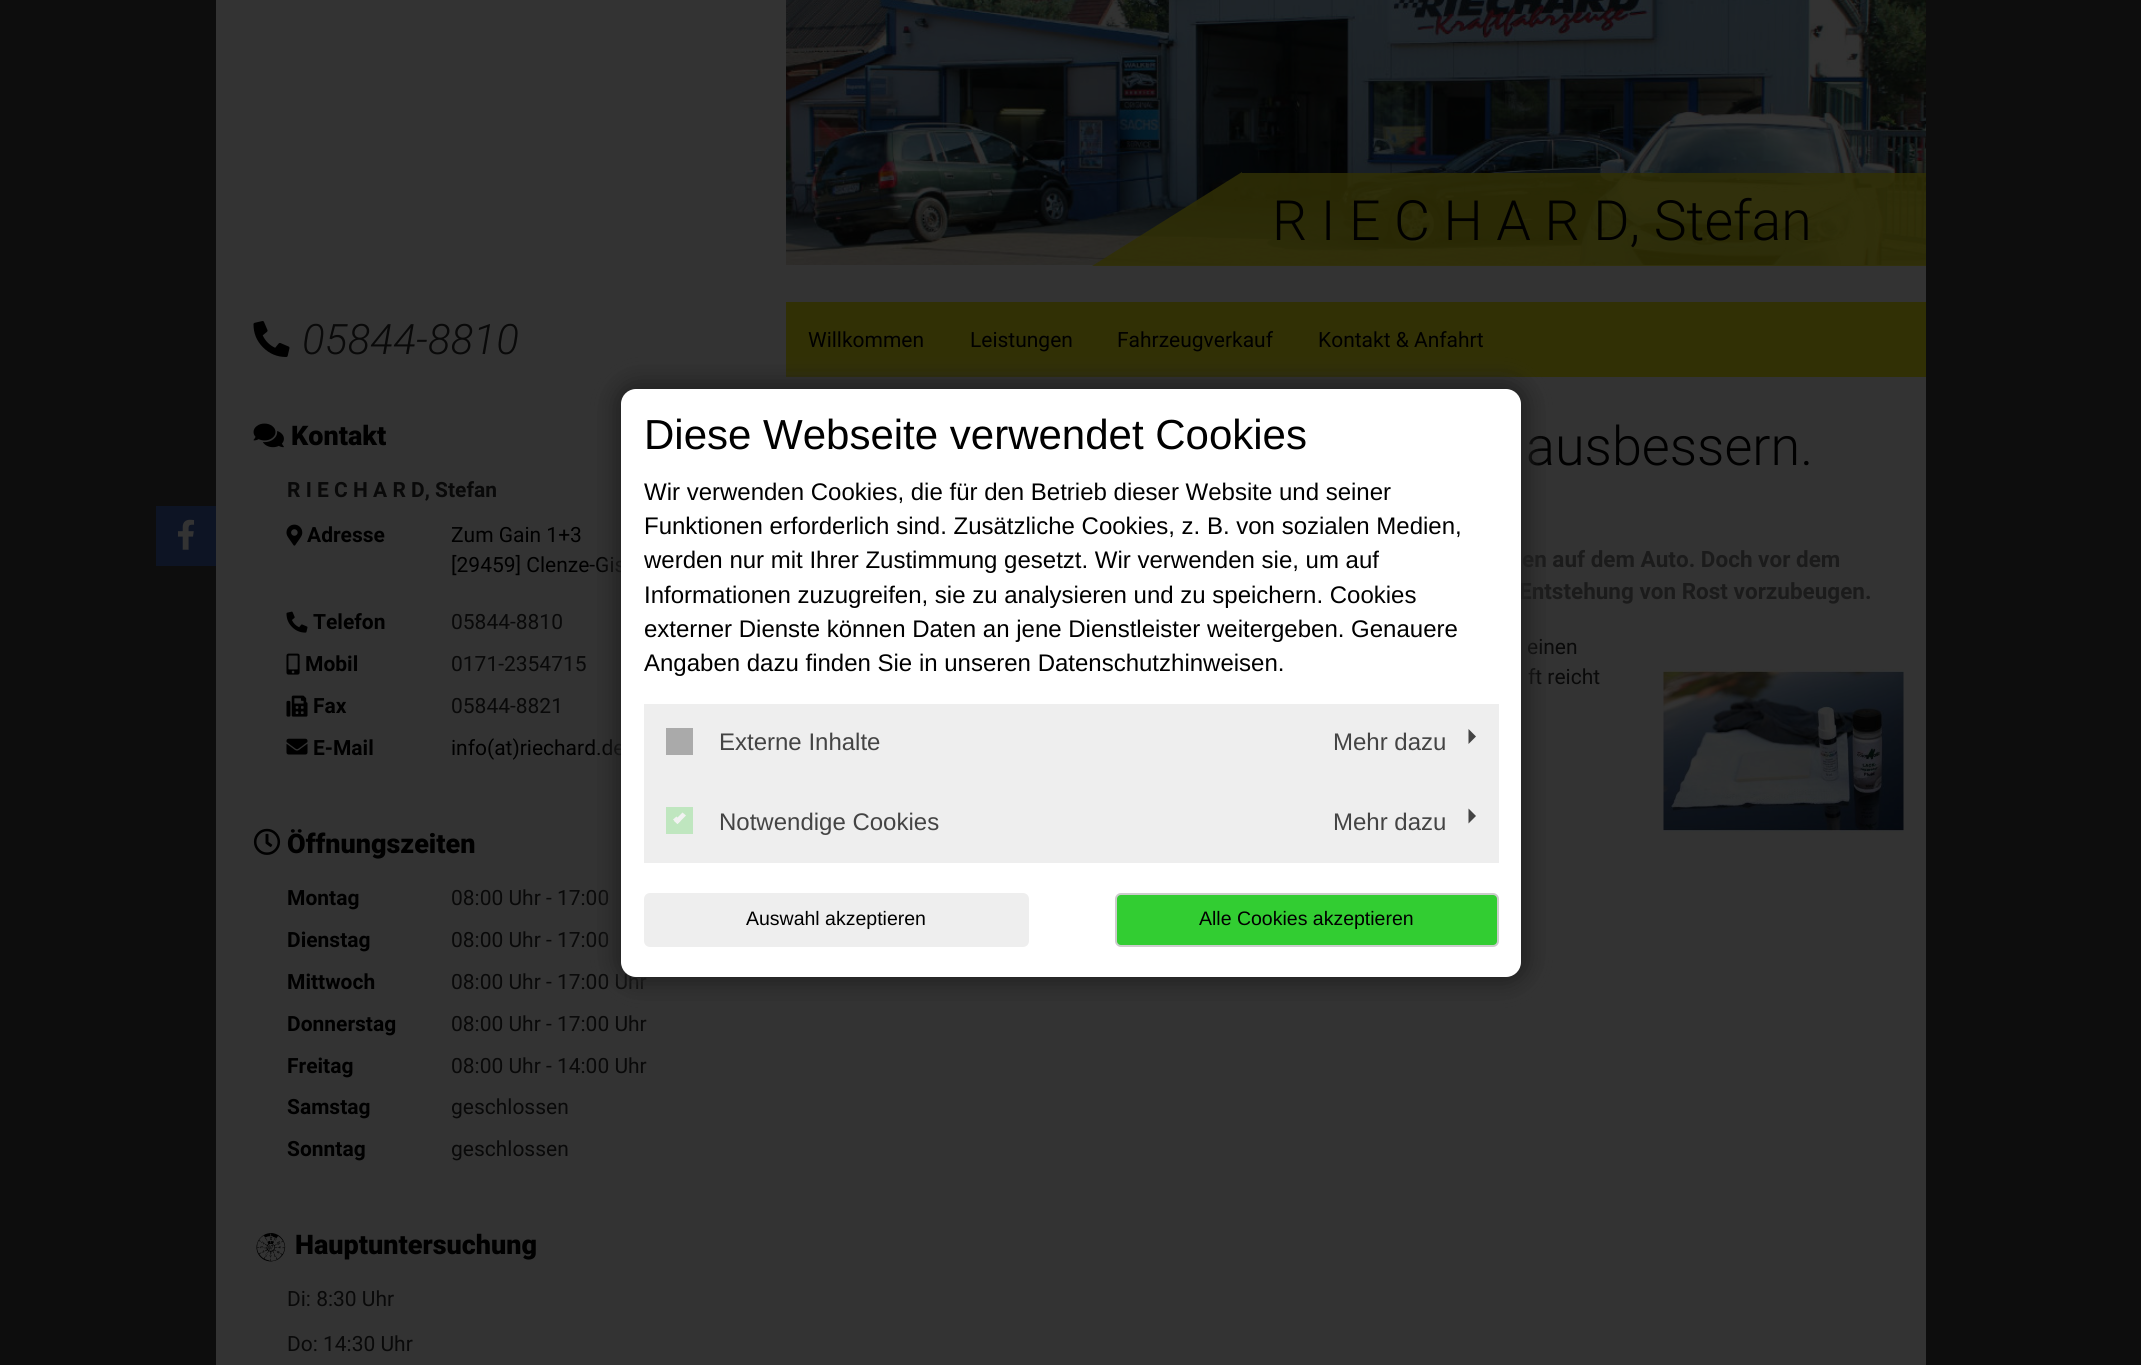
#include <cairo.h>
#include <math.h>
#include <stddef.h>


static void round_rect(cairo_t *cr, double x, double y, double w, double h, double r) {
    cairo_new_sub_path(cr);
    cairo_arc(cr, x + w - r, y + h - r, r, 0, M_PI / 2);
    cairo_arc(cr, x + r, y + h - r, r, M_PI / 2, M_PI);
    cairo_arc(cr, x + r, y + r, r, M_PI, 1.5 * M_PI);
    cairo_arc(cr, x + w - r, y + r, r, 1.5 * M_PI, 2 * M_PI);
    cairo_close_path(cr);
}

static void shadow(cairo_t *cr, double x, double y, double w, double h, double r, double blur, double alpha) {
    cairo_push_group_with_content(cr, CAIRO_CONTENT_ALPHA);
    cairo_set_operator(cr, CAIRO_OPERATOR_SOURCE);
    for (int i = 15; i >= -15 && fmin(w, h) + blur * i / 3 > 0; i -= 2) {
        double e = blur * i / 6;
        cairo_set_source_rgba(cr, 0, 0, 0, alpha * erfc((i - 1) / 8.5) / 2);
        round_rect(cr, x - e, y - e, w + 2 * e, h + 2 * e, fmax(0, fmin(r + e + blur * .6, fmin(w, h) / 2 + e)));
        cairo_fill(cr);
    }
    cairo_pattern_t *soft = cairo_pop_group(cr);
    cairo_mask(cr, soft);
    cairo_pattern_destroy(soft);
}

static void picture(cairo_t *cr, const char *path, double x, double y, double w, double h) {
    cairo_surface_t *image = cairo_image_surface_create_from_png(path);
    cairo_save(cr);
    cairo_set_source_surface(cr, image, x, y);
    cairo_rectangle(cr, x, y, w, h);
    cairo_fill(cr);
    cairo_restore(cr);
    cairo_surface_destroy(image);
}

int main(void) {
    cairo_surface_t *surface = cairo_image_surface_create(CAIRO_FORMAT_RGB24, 2141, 1365);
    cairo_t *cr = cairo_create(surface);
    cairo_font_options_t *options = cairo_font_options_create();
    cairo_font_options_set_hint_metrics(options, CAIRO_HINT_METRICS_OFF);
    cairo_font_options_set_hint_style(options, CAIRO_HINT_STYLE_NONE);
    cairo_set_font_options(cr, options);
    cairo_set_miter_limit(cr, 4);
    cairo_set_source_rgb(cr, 0.051, 0.051, 0.051);
    cairo_paint(cr);
    cairo_set_source_rgb(cr, 0.2, 0.2, 0.2);
    cairo_rectangle(cr, 216, 0, 1710, 1365);
    cairo_fill(cr);
    picture(cr, "img1.png", 786, 0, 1140, 265);
    cairo_set_source_rgba(cr, 0.192, 0.188, 0.02, 0.85);
    cairo_new_path(cr);
    cairo_move_to(cr, 1242, 266);
    cairo_line_to(cr, 1092, 266);
    cairo_line_to(cr, 1242, 172);
    cairo_close_path(cr);
    cairo_fill(cr);
    cairo_rectangle(cr, 1242, 173, 684, 93);
    cairo_fill(cr);
    cairo_select_font_face(cr, "Roboto Light", CAIRO_FONT_SLANT_NORMAL, CAIRO_FONT_WEIGHT_NORMAL);
    cairo_set_font_size(cr, 55.5);
    cairo_set_source_rgb(cr, 0, 0, 0);
    cairo_move_to(cr, 1272, 240);
    cairo_show_text(cr, "R I E C H A R D, Stefan");
    picture(cr, "img2.png", 253, 321, 37, 36);
    cairo_select_font_face(cr, "Roboto Light", CAIRO_FONT_SLANT_ITALIC, CAIRO_FONT_WEIGHT_NORMAL);
    cairo_set_font_size(cr, 42);
    cairo_set_source_rgb(cr, 0.039, 0.039, 0.039);
    cairo_move_to(cr, 302, 354);
    cairo_show_text(cr, "05844-8810");
    cairo_set_source_rgb(cr, 0.192, 0.188, 0.02);
    cairo_rectangle(cr, 786, 302, 1140, 75);
    cairo_fill(cr);
    cairo_select_font_face(cr, "Roboto", CAIRO_FONT_SLANT_NORMAL, CAIRO_FONT_WEIGHT_NORMAL);
    cairo_set_font_size(cr, 21);
    cairo_set_source_rgb(cr, 0, 0, 0);
    cairo_move_to(cr, 808, 347);
    cairo_show_text(cr, "Willkommen");
    cairo_move_to(cr, 970, 347);
    cairo_show_text(cr, "Leistungen");
    cairo_move_to(cr, 1117, 347);
    cairo_show_text(cr, "Fahrzeugverkauf");
    cairo_move_to(cr, 1318, 347);
    cairo_show_text(cr, "Kontakt & Anfahrt");
    cairo_set_source_rgb(cr, 0.051, 0.082, 0.141);
    cairo_rectangle(cr, 156, 506, 60, 60);
    cairo_fill(cr);
    picture(cr, "img3.png", 177, 519, 18, 31);
    picture(cr, "img4.png", 253, 423, 31, 25);
    cairo_select_font_face(cr, "Roboto Black", CAIRO_FONT_SLANT_NORMAL, CAIRO_FONT_WEIGHT_NORMAL);
    cairo_set_font_size(cr, 27);
    cairo_set_source_rgb(cr, 0, 0, 0);
    cairo_move_to(cr, 291, 445);
    cairo_show_text(cr, "Kontakt");
    cairo_select_font_face(cr, "Roboto", CAIRO_FONT_SLANT_NORMAL, CAIRO_FONT_WEIGHT_BOLD);
    cairo_set_font_size(cr, 21);
    cairo_set_source_rgb(cr, 0.039, 0.039, 0.039);
    cairo_move_to(cr, 287, 497);
    cairo_show_text(cr, "R I E C H A R D, Stefan");
    picture(cr, "img5.png", 286, 524, 17, 22);
    cairo_set_source_rgb(cr, 0, 0, 0);
    cairo_move_to(cr, 307, 542);
    cairo_show_text(cr, "Adresse");
    cairo_select_font_face(cr, "Roboto", CAIRO_FONT_SLANT_NORMAL, CAIRO_FONT_WEIGHT_NORMAL);
    cairo_move_to(cr, 451, 542);
    cairo_show_text(cr, "Zum Gain 1+3");
    cairo_move_to(cr, 451, 572);
    cairo_show_text(cr, "[29459] Clenze-Gis");
    picture(cr, "img6.png", 286, 611, 22, 22);
    cairo_select_font_face(cr, "Roboto", CAIRO_FONT_SLANT_NORMAL, CAIRO_FONT_WEIGHT_BOLD);
    cairo_move_to(cr, 313, 629);
    cairo_show_text(cr, "Telefon");
    cairo_select_font_face(cr, "Roboto", CAIRO_FONT_SLANT_NORMAL, CAIRO_FONT_WEIGHT_NORMAL);
    cairo_set_source_rgb(cr, 0.039, 0.039, 0.039);
    cairo_move_to(cr, 451, 629);
    cairo_show_text(cr, "05844-8810");
    picture(cr, "img7.png", 286, 653, 14, 22);
    cairo_select_font_face(cr, "Roboto", CAIRO_FONT_SLANT_NORMAL, CAIRO_FONT_WEIGHT_BOLD);
    cairo_set_source_rgb(cr, 0, 0, 0);
    cairo_move_to(cr, 305, 671);
    cairo_show_text(cr, "Mobil");
    cairo_select_font_face(cr, "Roboto", CAIRO_FONT_SLANT_NORMAL, CAIRO_FONT_WEIGHT_NORMAL);
    cairo_set_source_rgb(cr, 0.039, 0.039, 0.039);
    cairo_move_to(cr, 451, 671);
    cairo_show_text(cr, "0171-2354715");
    picture(cr, "img8.png", 286, 695, 22, 22);
    cairo_select_font_face(cr, "Roboto", CAIRO_FONT_SLANT_NORMAL, CAIRO_FONT_WEIGHT_BOLD);
    cairo_set_source_rgb(cr, 0, 0, 0);
    cairo_move_to(cr, 313, 713);
    cairo_show_text(cr, "Fax");
    cairo_select_font_face(cr, "Roboto", CAIRO_FONT_SLANT_NORMAL, CAIRO_FONT_WEIGHT_NORMAL);
    cairo_set_source_rgb(cr, 0.039, 0.039, 0.039);
    cairo_move_to(cr, 451, 713);
    cairo_show_text(cr, "05844-8821");
    picture(cr, "img9.png", 286, 738, 22, 17);
    cairo_select_font_face(cr, "Roboto", CAIRO_FONT_SLANT_NORMAL, CAIRO_FONT_WEIGHT_BOLD);
    cairo_set_source_rgb(cr, 0, 0, 0);
    cairo_move_to(cr, 313, 755);
    cairo_show_text(cr, "E-Mail");
    cairo_select_font_face(cr, "Roboto", CAIRO_FONT_SLANT_NORMAL, CAIRO_FONT_WEIGHT_NORMAL);
    cairo_move_to(cr, 451, 755);
    cairo_show_text(cr, "info(at)riechard.de");
    picture(cr, "img10.png", 253, 828, 28, 27);
    cairo_select_font_face(cr, "Roboto Black", CAIRO_FONT_SLANT_NORMAL, CAIRO_FONT_WEIGHT_NORMAL);
    cairo_set_font_size(cr, 27);
    cairo_move_to(cr, 287, 853);
    cairo_show_text(cr, "Öffnungszeiten");
    cairo_select_font_face(cr, "Roboto", CAIRO_FONT_SLANT_NORMAL, CAIRO_FONT_WEIGHT_BOLD);
    cairo_set_font_size(cr, 21);
    cairo_move_to(cr, 287, 905);
    cairo_show_text(cr, "Montag");
    cairo_select_font_face(cr, "Roboto", CAIRO_FONT_SLANT_NORMAL, CAIRO_FONT_WEIGHT_NORMAL);
    cairo_set_source_rgb(cr, 0.039, 0.039, 0.039);
    cairo_move_to(cr, 451, 905);
    cairo_show_text(cr, "08:00 Uhr - 17:00");
    cairo_select_font_face(cr, "Roboto", CAIRO_FONT_SLANT_NORMAL, CAIRO_FONT_WEIGHT_BOLD);
    cairo_set_source_rgb(cr, 0, 0, 0);
    cairo_move_to(cr, 287, 947);
    cairo_show_text(cr, "Dienstag");
    cairo_select_font_face(cr, "Roboto", CAIRO_FONT_SLANT_NORMAL, CAIRO_FONT_WEIGHT_NORMAL);
    cairo_set_source_rgb(cr, 0.039, 0.039, 0.039);
    cairo_move_to(cr, 451, 947);
    cairo_show_text(cr, "08:00 Uhr - 17:00");
    cairo_select_font_face(cr, "Roboto", CAIRO_FONT_SLANT_NORMAL, CAIRO_FONT_WEIGHT_BOLD);
    cairo_set_source_rgb(cr, 0, 0, 0);
    cairo_move_to(cr, 287, 989);
    cairo_show_text(cr, "Mittwoch");
    cairo_select_font_face(cr, "Roboto", CAIRO_FONT_SLANT_NORMAL, CAIRO_FONT_WEIGHT_NORMAL);
    cairo_set_source_rgb(cr, 0.039, 0.039, 0.039);
    cairo_move_to(cr, 451, 989);
    cairo_show_text(cr, "08:00 Uhr - 17:00 Uhr");
    cairo_select_font_face(cr, "Roboto", CAIRO_FONT_SLANT_NORMAL, CAIRO_FONT_WEIGHT_BOLD);
    cairo_set_source_rgb(cr, 0, 0, 0);
    cairo_move_to(cr, 287, 1031);
    cairo_show_text(cr, "Donnerstag");
    cairo_select_font_face(cr, "Roboto", CAIRO_FONT_SLANT_NORMAL, CAIRO_FONT_WEIGHT_NORMAL);
    cairo_set_source_rgb(cr, 0.039, 0.039, 0.039);
    cairo_move_to(cr, 451, 1031);
    cairo_show_text(cr, "08:00 Uhr - 17:00 Uhr");
    cairo_select_font_face(cr, "Roboto", CAIRO_FONT_SLANT_NORMAL, CAIRO_FONT_WEIGHT_BOLD);
    cairo_set_source_rgb(cr, 0, 0, 0);
    cairo_move_to(cr, 287, 1073);
    cairo_show_text(cr, "Freitag");
    cairo_select_font_face(cr, "Roboto", CAIRO_FONT_SLANT_NORMAL, CAIRO_FONT_WEIGHT_NORMAL);
    cairo_set_source_rgb(cr, 0.039, 0.039, 0.039);
    cairo_move_to(cr, 451, 1073);
    cairo_show_text(cr, "08:00 Uhr - 14:00 Uhr");
    cairo_select_font_face(cr, "Roboto", CAIRO_FONT_SLANT_NORMAL, CAIRO_FONT_WEIGHT_BOLD);
    cairo_set_source_rgb(cr, 0, 0, 0);
    cairo_move_to(cr, 287, 1114);
    cairo_show_text(cr, "Samstag");
    cairo_select_font_face(cr, "Roboto", CAIRO_FONT_SLANT_NORMAL, CAIRO_FONT_WEIGHT_NORMAL);
    cairo_set_source_rgb(cr, 0.039, 0.039, 0.039);
    cairo_move_to(cr, 451, 1114);
    cairo_show_text(cr, "geschlossen");
    cairo_select_font_face(cr, "Roboto", CAIRO_FONT_SLANT_NORMAL, CAIRO_FONT_WEIGHT_BOLD);
    cairo_set_source_rgb(cr, 0, 0, 0);
    cairo_move_to(cr, 287, 1156);
    cairo_show_text(cr, "Sonntag");
    cairo_select_font_face(cr, "Roboto", CAIRO_FONT_SLANT_NORMAL, CAIRO_FONT_WEIGHT_NORMAL);
    cairo_set_source_rgb(cr, 0.039, 0.039, 0.039);
    cairo_move_to(cr, 451, 1156);
    cairo_show_text(cr, "geschlossen");
    picture(cr, "img11.png", 256, 1233, 30, 29);
    cairo_select_font_face(cr, "Roboto Black", CAIRO_FONT_SLANT_NORMAL, CAIRO_FONT_WEIGHT_NORMAL);
    cairo_set_font_size(cr, 27);
    cairo_set_source_rgb(cr, 0, 0, 0);
    cairo_move_to(cr, 295, 1254);
    cairo_show_text(cr, "Hauptuntersuchung");
    cairo_select_font_face(cr, "Roboto", CAIRO_FONT_SLANT_NORMAL, CAIRO_FONT_WEIGHT_NORMAL);
    cairo_set_font_size(cr, 21);
    cairo_set_source_rgb(cr, 0.039, 0.039, 0.039);
    cairo_move_to(cr, 287, 1306);
    cairo_show_text(cr, "Di: 8:30 Uhr");
    cairo_move_to(cr, 287, 1351);
    cairo_show_text(cr, "Do: 14:30 Uhr");
    cairo_select_font_face(cr, "Roboto Light", CAIRO_FONT_SLANT_NORMAL, CAIRO_FONT_WEIGHT_NORMAL);
    cairo_set_font_size(cr, 54);
    cairo_set_source_rgb(cr, 0, 0, 0);
    cairo_move_to(cr, 1526, 465);
    cairo_show_text(cr, "ausbessern.");
    cairo_select_font_face(cr, "Roboto", CAIRO_FONT_SLANT_NORMAL, CAIRO_FONT_WEIGHT_BOLD);
    cairo_set_font_size(cr, 22.5);
    cairo_set_source_rgb(cr, 0.106, 0.106, 0.106);
    cairo_move_to(cr, 1522, 567);
    cairo_show_text(cr, "en auf dem Auto. Doch vor dem");
    cairo_move_to(cr, 1519, 599);
    cairo_show_text(cr, "Entstehung von Rost vorzubeugen.");
    cairo_select_font_face(cr, "Roboto", CAIRO_FONT_SLANT_NORMAL, CAIRO_FONT_WEIGHT_NORMAL);
    cairo_set_font_size(cr, 21);
    cairo_set_source_rgb(cr, 0.039, 0.039, 0.039);
    cairo_move_to(cr, 1527, 654);
    cairo_show_text(cr, "einen");
    cairo_move_to(cr, 1528, 684);
    cairo_show_text(cr, "ft reicht");
    picture(cr, "img12.png", 1663, 669, 241, 164);
    cairo_set_source_rgb(cr, 0.133, 0.133, 0.133);
    shadow(cr, 614, 381, 915, 603, 23, 11, 1);
    cairo_set_source_rgb(cr, 1, 1, 1);
    round_rect(cr, 621, 389, 900, 588, 15);
    cairo_fill(cr);
    cairo_select_font_face(cr, "Liberation Sans", CAIRO_FONT_SLANT_NORMAL, CAIRO_FONT_WEIGHT_NORMAL);
    cairo_set_font_size(cr, 42);
    cairo_set_source_rgb(cr, 0, 0, 0);
    cairo_move_to(cr, 644, 449);
    cairo_show_text(cr, "Diese Webseite verwendet Cookies");
    cairo_set_font_size(cr, 24);
    cairo_move_to(cr, 644, 500);
    cairo_show_text(cr, "Wir verwenden Cookies, die für den Betrieb dieser Website und seiner");
    cairo_move_to(cr, 644, 534);
    cairo_show_text(cr, "Funktionen erforderlich sind. Zusätzliche Cookies, z. B. von sozialen Medien,");
    cairo_move_to(cr, 644, 568);
    cairo_show_text(cr, "werden nur mit Ihrer Zustimmung gesetzt. Wir verwenden sie, um auf");
    cairo_move_to(cr, 644, 603);
    cairo_show_text(cr, "Informationen zuzugreifen, sie zu analysieren und zu speichern. Cookies");
    cairo_move_to(cr, 644, 637);
    cairo_show_text(cr, "externer Dienste können Daten an jene Dienstleister weitergeben. Genauere");
    cairo_move_to(cr, 644, 671);
    cairo_show_text(cr, "Angaben dazu finden Sie in unseren Datenschutzhinweisen.");
    cairo_set_source_rgb(cr, 0.933, 0.933, 0.933);
    cairo_rectangle(cr, 644, 704, 855, 159);
    cairo_fill(cr);
    cairo_set_source_rgb(cr, 0.667, 0.667, 0.667);
    cairo_rectangle(cr, 666, 728, 27, 27);
    cairo_fill(cr);
    cairo_set_source_rgb(cr, 0.267, 0.267, 0.267);
    cairo_move_to(cr, 719, 750);
    cairo_show_text(cr, "Externe Inhalte");
    cairo_move_to(cr, 1333, 750);
    cairo_show_text(cr, "Mehr dazu");
    cairo_new_path(cr);
    cairo_move_to(cr, 1468.5, 744);
    cairo_line_to(cr, 1468.5, 729);
    cairo_line_to(cr, 1476, 736.5);
    cairo_close_path(cr);
    cairo_fill(cr);
    cairo_set_source_rgb(cr, 0.749, 0.902, 0.749);
    cairo_rectangle(cr, 666, 807, 27, 27);
    cairo_fill(cr);
    cairo_set_source_rgb(cr, 0.949, 0.949, 0.949);
    cairo_new_path(cr);
    cairo_move_to(cr, 682.5, 812.5);
    cairo_line_to(cr, 686, 815.5);
    cairo_line_to(cr, 677.5, 824);
    cairo_line_to(cr, 674, 821);
    cairo_close_path(cr);
    cairo_fill(cr);
    cairo_new_path(cr);
    cairo_move_to(cr, 676.5, 816.5);
    cairo_line_to(cr, 680.5, 821);
    cairo_line_to(cr, 677.5, 824);
    cairo_line_to(cr, 673, 819.5);
    cairo_close_path(cr);
    cairo_fill(cr);
    cairo_set_source_rgb(cr, 0.267, 0.267, 0.267);
    cairo_move_to(cr, 719, 830);
    cairo_show_text(cr, "Notwendige Cookies");
    cairo_move_to(cr, 1333, 830);
    cairo_show_text(cr, "Mehr dazu");
    cairo_new_path(cr);
    cairo_move_to(cr, 1468.5, 823.5);
    cairo_line_to(cr, 1468.5, 808.5);
    cairo_line_to(cr, 1476, 816);
    cairo_close_path(cr);
    cairo_fill(cr);
    cairo_set_source_rgb(cr, 0.933, 0.933, 0.933);
    round_rect(cr, 645, 894, 383, 52, 5);
    cairo_fill_preserve(cr);
    cairo_stroke(cr);
    cairo_set_font_size(cr, 19.5);
    cairo_set_source_rgb(cr, 0, 0, 0);
    cairo_move_to(cr, 746, 925);
    cairo_show_text(cr, "Auswahl akzeptieren");
    cairo_set_source_rgb(cr, 0.196, 0.804, 0.196);
    round_rect(cr, 1116, 894, 382, 52, 5);
    cairo_fill_preserve(cr);
    cairo_set_source_rgb(cr, 0.8, 0.8, 0.8);
    cairo_stroke(cr);
    cairo_set_source_rgb(cr, 0, 0, 0);
    cairo_move_to(cr, 1199, 925);
    cairo_show_text(cr, "Alle Cookies akzeptieren");
    cairo_surface_write_to_png(surface, "page.png");
    cairo_font_options_destroy(options);
    cairo_destroy(cr);
    cairo_surface_destroy(surface);
    return 0;
}
